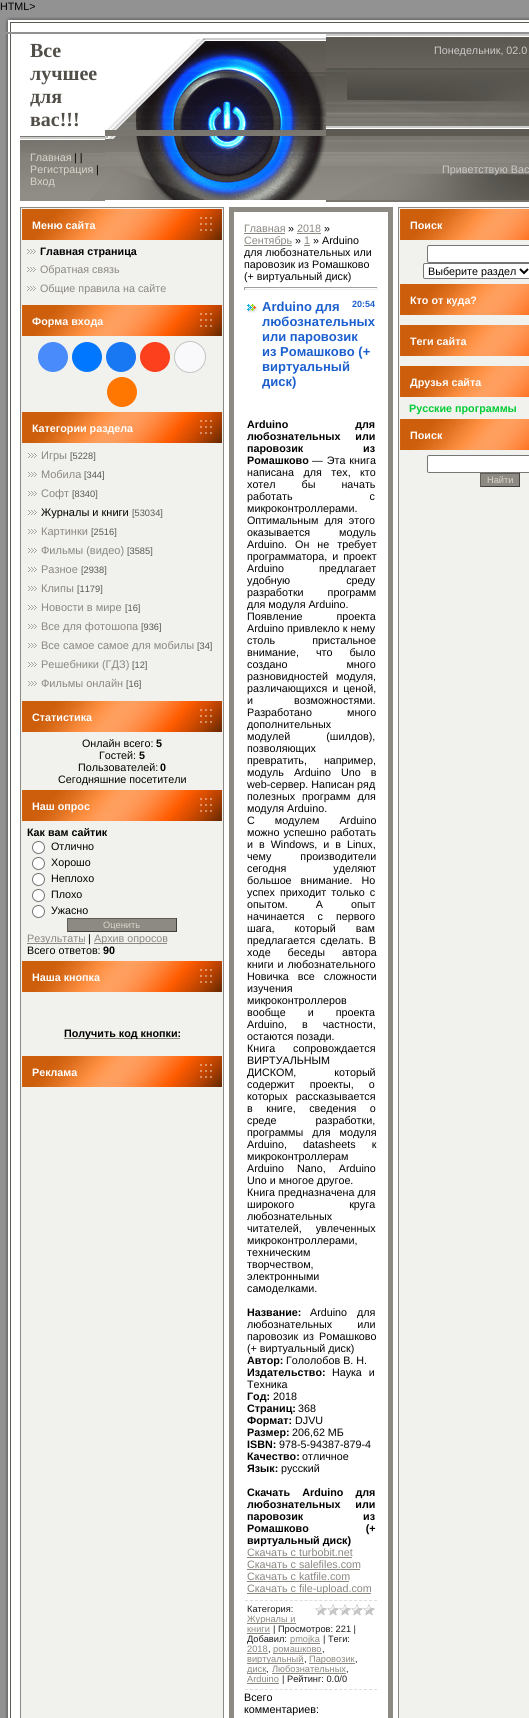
#include <cairo.h>
#include <math.h>
#include <stddef.h>


static void spaced_text(cairo_t *cr, double x, double y, const char *s, double letter, double word) {
    cairo_move_to(cr, x, y);
    while (*s) {
        char ch[5] = {0};
        int n = 0;
        do ch[n++] = *s++; while ((*s & 0xC0) == 0x80);
        cairo_show_text(cr, ch);
        cairo_rel_move_to(cr, letter + word * (*ch == ' '), 0);
    }
}

static void round_rect(cairo_t *cr, double x, double y, double w, double h, double r) {
    cairo_new_sub_path(cr);
    cairo_arc(cr, x + w - r, y + h - r, r, 0, M_PI / 2);
    cairo_arc(cr, x + r, y + h - r, r, M_PI / 2, M_PI);
    cairo_arc(cr, x + r, y + r, r, M_PI, 1.5 * M_PI);
    cairo_arc(cr, x + w - r, y + r, r, 1.5 * M_PI, 2 * M_PI);
    cairo_close_path(cr);
}

static void picture(cairo_t *cr, const char *path, double x, double y, double w, double h) {
    cairo_surface_t *image = cairo_image_surface_create_from_png(path);
    cairo_save(cr);
    cairo_set_source_surface(cr, image, x, y);
    cairo_rectangle(cr, x, y, w, h);
    cairo_fill(cr);
    cairo_restore(cr);
    cairo_surface_destroy(image);
}

int main(void) {
    cairo_surface_t *surface = cairo_image_surface_create(CAIRO_FORMAT_RGB24, 529, 1718);
    cairo_t *cr = cairo_create(surface);
    cairo_font_options_t *options = cairo_font_options_create();
    cairo_font_options_set_hint_metrics(options, CAIRO_HINT_METRICS_OFF);
    cairo_font_options_set_hint_style(options, CAIRO_HINT_STYLE_NONE);
    cairo_set_font_options(cr, options);
    cairo_set_miter_limit(cr, 4);
    cairo_set_source_rgb(cr, 0.573, 0.573, 0.573);
    cairo_paint(cr);
    cairo_select_font_face(cr, "Liberation Sans", CAIRO_FONT_SLANT_NORMAL, CAIRO_FONT_WEIGHT_NORMAL);
    cairo_set_font_size(cr, 10.75);
    cairo_set_source_rgb(cr, 0, 0, 0);
    cairo_move_to(cr, 0, 10);
    cairo_show_text(cr, "HTML>");
    picture(cr, "img1.png", 5, 17, 15, 15);
    picture(cr, "img2.png", 20, 17, 509, 15);
    picture(cr, "img3.png", 5, 34, 15, 1684);
    picture(cr, "img4.png", 20, 34, 306, 168);
    cairo_set_source_rgb(cr, 1, 1, 1);
    cairo_rectangle(cr, 20, 126, 85, 10);
    cairo_fill(cr);
    cairo_select_font_face(cr, "Liberation Serif", CAIRO_FONT_SLANT_NORMAL, CAIRO_FONT_WEIGHT_BOLD);
    cairo_set_font_size(cr, 20);
    cairo_set_source_rgb(cr, 0.318, 0.306, 0.282);
    cairo_move_to(cr, 30, 57);
    cairo_show_text(cr, "Все");
    cairo_move_to(cr, 30, 80);
    cairo_show_text(cr, "лучшее");
    cairo_move_to(cr, 30, 103);
    cairo_show_text(cr, "для");
    cairo_move_to(cr, 30, 126);
    cairo_show_text(cr, "вас!!!");
    picture(cr, "img5.png", 105, 38, 221, 92);
    picture(cr, "img6.png", 326, 34, 203, 102);
    cairo_select_font_face(cr, "Liberation Sans", CAIRO_FONT_SLANT_NORMAL, CAIRO_FONT_WEIGHT_NORMAL);
    cairo_set_font_size(cr, 10.75);
    cairo_set_source_rgb(cr, 0.796, 0.792, 0.784);
    cairo_move_to(cr, 434, 54);
    cairo_show_text(cr, "Понедельник, 02.0");
    picture(cr, "img7.png", 20, 137, 85, 64);
    cairo_set_source_rgb(cr, 0.855, 0.835, 0.792);
    cairo_move_to(cr, 30, 161);
    cairo_show_text(cr, "Главная");
    cairo_set_source_rgb(cr, 0, 0, 0);
    cairo_move_to(cr, 74, 161);
    cairo_show_text(cr, "| |");
    cairo_set_source_rgb(cr, 0.855, 0.835, 0.792);
    cairo_move_to(cr, 30, 173);
    cairo_show_text(cr, "Регистрация");
    cairo_set_source_rgb(cr, 0, 0, 0);
    cairo_move_to(cr, 96, 173);
    cairo_show_text(cr, "|");
    cairo_set_source_rgb(cr, 0.855, 0.835, 0.792);
    cairo_move_to(cr, 30, 185);
    cairo_show_text(cr, "Вход");
    picture(cr, "img8.png", 105, 136, 221, 64);
    picture(cr, "img9.png", 326, 136, 203, 66);
    cairo_set_source_rgb(cr, 0.796, 0.792, 0.784);
    cairo_move_to(cr, 442, 173);
    cairo_show_text(cr, "Приветствую Вас");
    cairo_set_source_rgb(cr, 1, 1, 1);
    cairo_rectangle(cr, 20, 202, 509, 1516);
    cairo_fill(cr);
    cairo_set_source_rgb(cr, 0.945, 0.945, 0.929);
    cairo_rectangle(cr, 20.5, 207.5, 203, 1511);
    cairo_fill_preserve(cr);
    cairo_set_source_rgb(cr, 0.549, 0.541, 0.51);
    cairo_set_line_width(cr, 1);
    cairo_stroke(cr);
    picture(cr, "img10.png", 22, 209, 200, 31);
    cairo_select_font_face(cr, "Liberation Sans", CAIRO_FONT_SLANT_NORMAL, CAIRO_FONT_WEIGHT_BOLD);
    cairo_set_source_rgb(cr, 1, 1, 1);
    cairo_move_to(cr, 32, 229);
    cairo_show_text(cr, "Меню сайта");
    picture(cr, "img11.png", 27, 249, 9, 5);
    cairo_set_source_rgb(cr, 0, 0, 0);
    cairo_move_to(cr, 40, 255);
    cairo_show_text(cr, "Главная страница");
    picture(cr, "img11.png", 27, 267, 9, 5);
    cairo_select_font_face(cr, "Liberation Sans", CAIRO_FONT_SLANT_NORMAL, CAIRO_FONT_WEIGHT_NORMAL);
    cairo_set_source_rgb(cr, 0.545, 0.533, 0.506);
    cairo_move_to(cr, 40, 273);
    cairo_show_text(cr, "Обратная связь");
    picture(cr, "img11.png", 27, 286, 9, 5);
    cairo_move_to(cr, 40, 292);
    cairo_show_text(cr, "Общие правила на сайте");
    picture(cr, "img10.png", 22, 305, 200, 31);
    cairo_select_font_face(cr, "Liberation Sans", CAIRO_FONT_SLANT_NORMAL, CAIRO_FONT_WEIGHT_BOLD);
    cairo_set_source_rgb(cr, 1, 1, 1);
    cairo_move_to(cr, 32, 325);
    cairo_show_text(cr, "Форма входа");
    cairo_set_source_rgb(cr, 0.286, 0.545, 0.98);
    cairo_new_path(cr);
    cairo_arc(cr, 53, 357, 15, 0, 2 * M_PI);
    cairo_fill(cr);
    cairo_set_source_rgb(cr, 0, 0.467, 1);
    cairo_arc(cr, 87, 357, 15, 0, 2 * M_PI);
    cairo_fill(cr);
    cairo_set_source_rgb(cr, 0.094, 0.467, 0.949);
    cairo_arc(cr, 121, 357, 15, 0, 2 * M_PI);
    cairo_fill(cr);
    cairo_set_source_rgb(cr, 0.988, 0.247, 0.114);
    cairo_arc(cr, 155, 357, 15, 0, 2 * M_PI);
    cairo_fill(cr);
    cairo_set_source_rgb(cr, 0.973, 0.973, 0.988);
    cairo_arc(cr, 190, 357, 15.5, 0, 2 * M_PI);
    cairo_fill_preserve(cr);
    cairo_set_source_rgb(cr, 0.769, 0.769, 0.769);
    cairo_stroke(cr);
    cairo_set_source_rgb(cr, 1, 0.467, 0);
    cairo_arc(cr, 122, 392, 15, 0, 2 * M_PI);
    cairo_fill(cr);
    picture(cr, "img10.png", 22, 412, 200, 31);
    cairo_set_source_rgb(cr, 1, 1, 1);
    cairo_move_to(cr, 32, 432);
    cairo_show_text(cr, "Категории раздела");
    picture(cr, "img11.png", 28, 453, 9, 5);
    cairo_select_font_face(cr, "Liberation Sans", CAIRO_FONT_SLANT_NORMAL, CAIRO_FONT_WEIGHT_NORMAL);
    cairo_set_font_size(cr, 11);
    cairo_set_source_rgb(cr, 0.545, 0.533, 0.506);
    cairo_move_to(cr, 41, 459);
    cairo_show_text(cr, "Игры");
    cairo_set_font_size(cr, 9.25);
    cairo_set_source_rgb(cr, 0.333, 0.333, 0.333);
    cairo_move_to(cr, 70, 459);
    cairo_show_text(cr, "[5228]");
    picture(cr, "img11.png", 28, 472, 9, 5);
    cairo_set_font_size(cr, 11);
    cairo_set_source_rgb(cr, 0.545, 0.533, 0.506);
    cairo_move_to(cr, 41, 478);
    cairo_show_text(cr, "Мобила");
    cairo_set_font_size(cr, 9.25);
    cairo_set_source_rgb(cr, 0.333, 0.333, 0.333);
    cairo_move_to(cr, 84, 478);
    cairo_show_text(cr, "[344]");
    picture(cr, "img11.png", 28, 491, 9, 5);
    cairo_set_font_size(cr, 11);
    cairo_set_source_rgb(cr, 0.545, 0.533, 0.506);
    cairo_move_to(cr, 41, 497);
    cairo_show_text(cr, "Софт");
    cairo_set_font_size(cr, 9.25);
    cairo_set_source_rgb(cr, 0.333, 0.333, 0.333);
    cairo_move_to(cr, 72, 497);
    cairo_show_text(cr, "[8340]");
    picture(cr, "img11.png", 28, 510, 9, 5);
    cairo_set_font_size(cr, 11);
    cairo_set_source_rgb(cr, 0, 0, 0);
    cairo_move_to(cr, 41, 516);
    cairo_show_text(cr, "Журналы и книги");
    cairo_set_font_size(cr, 9.25);
    cairo_set_source_rgb(cr, 0.333, 0.333, 0.333);
    cairo_move_to(cr, 132, 516);
    cairo_show_text(cr, "[53034]");
    picture(cr, "img11.png", 28, 529, 9, 5);
    cairo_set_font_size(cr, 11);
    cairo_set_source_rgb(cr, 0.545, 0.533, 0.506);
    cairo_move_to(cr, 41, 535);
    cairo_show_text(cr, "Картинки");
    cairo_set_font_size(cr, 9.25);
    cairo_set_source_rgb(cr, 0.333, 0.333, 0.333);
    cairo_move_to(cr, 91, 535);
    cairo_show_text(cr, "[2516]");
    picture(cr, "img11.png", 28, 548, 9, 5);
    cairo_set_font_size(cr, 11);
    cairo_set_source_rgb(cr, 0.545, 0.533, 0.506);
    cairo_move_to(cr, 41, 554);
    cairo_show_text(cr, "Фильмы (видео)");
    cairo_set_font_size(cr, 9.25);
    cairo_set_source_rgb(cr, 0.333, 0.333, 0.333);
    cairo_move_to(cr, 127, 554);
    cairo_show_text(cr, "[3585]");
    picture(cr, "img11.png", 28, 567, 9, 5);
    cairo_set_font_size(cr, 11);
    cairo_set_source_rgb(cr, 0.545, 0.533, 0.506);
    cairo_move_to(cr, 41, 573);
    cairo_show_text(cr, "Разное");
    cairo_set_font_size(cr, 9.25);
    cairo_set_source_rgb(cr, 0.333, 0.333, 0.333);
    cairo_move_to(cr, 81, 573);
    cairo_show_text(cr, "[2938]");
    picture(cr, "img11.png", 28, 586, 9, 5);
    cairo_set_font_size(cr, 11);
    cairo_set_source_rgb(cr, 0.545, 0.533, 0.506);
    cairo_move_to(cr, 41, 592);
    cairo_show_text(cr, "Клипы");
    cairo_set_font_size(cr, 9.25);
    cairo_set_source_rgb(cr, 0.333, 0.333, 0.333);
    cairo_move_to(cr, 77, 592);
    cairo_show_text(cr, "[1179]");
    picture(cr, "img11.png", 28, 605, 9, 5);
    cairo_set_font_size(cr, 11);
    cairo_set_source_rgb(cr, 0.545, 0.533, 0.506);
    cairo_move_to(cr, 41, 611);
    cairo_show_text(cr, "Новости в мире");
    cairo_set_font_size(cr, 9.25);
    cairo_set_source_rgb(cr, 0.333, 0.333, 0.333);
    cairo_move_to(cr, 125, 611);
    cairo_show_text(cr, "[16]");
    picture(cr, "img11.png", 28, 624, 9, 5);
    cairo_set_font_size(cr, 11);
    cairo_set_source_rgb(cr, 0.545, 0.533, 0.506);
    cairo_move_to(cr, 41, 630);
    cairo_show_text(cr, "Все для фотошопа");
    cairo_set_font_size(cr, 9.25);
    cairo_set_source_rgb(cr, 0.333, 0.333, 0.333);
    cairo_move_to(cr, 141, 630);
    cairo_show_text(cr, "[936]");
    picture(cr, "img11.png", 28, 643, 9, 5);
    cairo_set_font_size(cr, 11);
    cairo_set_source_rgb(cr, 0.545, 0.533, 0.506);
    cairo_move_to(cr, 41, 649);
    cairo_show_text(cr, "Все самое самое для мобилы");
    cairo_set_font_size(cr, 9.25);
    cairo_set_source_rgb(cr, 0.333, 0.333, 0.333);
    cairo_move_to(cr, 197, 649);
    cairo_show_text(cr, "[34]");
    picture(cr, "img11.png", 28, 662, 9, 5);
    cairo_set_font_size(cr, 11);
    cairo_set_source_rgb(cr, 0.545, 0.533, 0.506);
    cairo_move_to(cr, 41, 668);
    cairo_show_text(cr, "Решебники (ГДЗ)");
    cairo_set_font_size(cr, 9.25);
    cairo_set_source_rgb(cr, 0.333, 0.333, 0.333);
    cairo_move_to(cr, 132, 668);
    cairo_show_text(cr, "[12]");
    picture(cr, "img11.png", 28, 681, 9, 5);
    cairo_set_font_size(cr, 11);
    cairo_set_source_rgb(cr, 0.545, 0.533, 0.506);
    cairo_move_to(cr, 41, 687);
    cairo_show_text(cr, "Фильмы онлайн");
    cairo_set_font_size(cr, 9.25);
    cairo_set_source_rgb(cr, 0.333, 0.333, 0.333);
    cairo_move_to(cr, 126, 687);
    cairo_show_text(cr, "[16]");
    picture(cr, "img10.png", 22, 701, 200, 31);
    cairo_select_font_face(cr, "Liberation Sans", CAIRO_FONT_SLANT_NORMAL, CAIRO_FONT_WEIGHT_BOLD);
    cairo_set_font_size(cr, 10.75);
    cairo_set_source_rgb(cr, 1, 1, 1);
    cairo_move_to(cr, 32, 721);
    cairo_show_text(cr, "Статистика");
    cairo_select_font_face(cr, "Liberation Sans", CAIRO_FONT_SLANT_NORMAL, CAIRO_FONT_WEIGHT_NORMAL);
    cairo_set_source_rgb(cr, 0, 0, 0);
    cairo_move_to(cr, 82, 747);
    cairo_show_text(cr, "Онлайн всего:");
    cairo_select_font_face(cr, "Liberation Sans", CAIRO_FONT_SLANT_NORMAL, CAIRO_FONT_WEIGHT_BOLD);
    cairo_move_to(cr, 156, 747);
    cairo_show_text(cr, "5");
    cairo_select_font_face(cr, "Liberation Sans", CAIRO_FONT_SLANT_NORMAL, CAIRO_FONT_WEIGHT_NORMAL);
    cairo_move_to(cr, 99, 759);
    cairo_show_text(cr, "Гостей:");
    cairo_select_font_face(cr, "Liberation Sans", CAIRO_FONT_SLANT_NORMAL, CAIRO_FONT_WEIGHT_BOLD);
    cairo_move_to(cr, 139, 759);
    cairo_show_text(cr, "5");
    cairo_select_font_face(cr, "Liberation Sans", CAIRO_FONT_SLANT_NORMAL, CAIRO_FONT_WEIGHT_NORMAL);
    cairo_move_to(cr, 78, 771);
    cairo_show_text(cr, "Пользователей:");
    cairo_select_font_face(cr, "Liberation Sans", CAIRO_FONT_SLANT_NORMAL, CAIRO_FONT_WEIGHT_BOLD);
    cairo_move_to(cr, 160, 771);
    cairo_show_text(cr, "0");
    cairo_select_font_face(cr, "Liberation Sans", CAIRO_FONT_SLANT_NORMAL, CAIRO_FONT_WEIGHT_NORMAL);
    cairo_move_to(cr, 58, 783);
    cairo_show_text(cr, "Сегодняшние посетители");
    picture(cr, "img10.png", 22, 790, 200, 31);
    cairo_select_font_face(cr, "Liberation Sans", CAIRO_FONT_SLANT_NORMAL, CAIRO_FONT_WEIGHT_BOLD);
    cairo_set_source_rgb(cr, 1, 1, 1);
    cairo_move_to(cr, 32, 810);
    cairo_show_text(cr, "Наш опрос");
    cairo_set_source_rgb(cr, 0, 0, 0);
    cairo_move_to(cr, 27, 836);
    cairo_show_text(cr, "Как вам сайтик");
    cairo_set_source_rgb(cr, 1, 1, 1);
    cairo_new_path(cr);
    cairo_arc(cr, 38.5, 847.5, 6, 0, 2 * M_PI);
    cairo_fill_preserve(cr);
    cairo_set_source_rgb(cr, 0.463, 0.463, 0.463);
    cairo_stroke(cr);
    cairo_select_font_face(cr, "Liberation Sans", CAIRO_FONT_SLANT_NORMAL, CAIRO_FONT_WEIGHT_NORMAL);
    cairo_set_source_rgb(cr, 0, 0, 0);
    cairo_move_to(cr, 51, 850);
    cairo_show_text(cr, "Отлично");
    cairo_set_source_rgb(cr, 1, 1, 1);
    cairo_new_path(cr);
    cairo_arc(cr, 38.5, 863.5, 6, 0, 2 * M_PI);
    cairo_fill_preserve(cr);
    cairo_set_source_rgb(cr, 0.463, 0.463, 0.463);
    cairo_stroke(cr);
    cairo_set_source_rgb(cr, 0, 0, 0);
    cairo_move_to(cr, 51, 866);
    cairo_show_text(cr, "Хорошо");
    cairo_set_source_rgb(cr, 1, 1, 1);
    cairo_new_path(cr);
    cairo_arc(cr, 38.5, 879.5, 6, 0, 2 * M_PI);
    cairo_fill_preserve(cr);
    cairo_set_source_rgb(cr, 0.463, 0.463, 0.463);
    cairo_stroke(cr);
    cairo_set_source_rgb(cr, 0, 0, 0);
    cairo_move_to(cr, 51, 882);
    cairo_show_text(cr, "Неплохо");
    cairo_set_source_rgb(cr, 1, 1, 1);
    cairo_new_path(cr);
    cairo_arc(cr, 38.5, 895.5, 6, 0, 2 * M_PI);
    cairo_fill_preserve(cr);
    cairo_set_source_rgb(cr, 0.463, 0.463, 0.463);
    cairo_stroke(cr);
    cairo_set_source_rgb(cr, 0, 0, 0);
    cairo_move_to(cr, 51, 898);
    cairo_show_text(cr, "Плохо");
    cairo_set_source_rgb(cr, 1, 1, 1);
    cairo_new_path(cr);
    cairo_arc(cr, 38.5, 911.5, 6, 0, 2 * M_PI);
    cairo_fill_preserve(cr);
    cairo_set_source_rgb(cr, 0.463, 0.463, 0.463);
    cairo_stroke(cr);
    cairo_set_source_rgb(cr, 0, 0, 0);
    cairo_move_to(cr, 51, 914);
    cairo_show_text(cr, "Ужасно");
    cairo_set_source_rgb(cr, 0.553, 0.541, 0.514);
    cairo_rectangle(cr, 68, 919, 108, 12);
    cairo_fill(cr);
    cairo_set_source_rgb(cr, 0.38, 0.369, 0.345);
    cairo_rectangle(cr, 67, 918, 110, 1);
    cairo_fill(cr);
    cairo_set_source_rgb(cr, 0.255, 0.247, 0.231);
    cairo_rectangle(cr, 176, 918, 1, 14);
    cairo_fill(cr);
    cairo_rectangle(cr, 67, 931, 110, 1);
    cairo_fill(cr);
    cairo_set_source_rgb(cr, 0.38, 0.369, 0.345);
    cairo_rectangle(cr, 67, 918, 1, 14);
    cairo_fill(cr);
    cairo_set_font_size(cr, 9.25);
    cairo_set_source_rgb(cr, 0.855, 0.835, 0.792);
    cairo_move_to(cr, 103, 928);
    cairo_show_text(cr, "Оценить");
    cairo_set_source_rgb(cr, 0.545, 0.533, 0.506);
    cairo_rectangle(cr, 27, 943, 58, 1);
    cairo_fill(cr);
    cairo_set_font_size(cr, 10.75);
    cairo_move_to(cr, 27, 942);
    cairo_show_text(cr, "Результаты");
    cairo_set_source_rgb(cr, 0, 0, 0);
    cairo_move_to(cr, 88, 942);
    cairo_show_text(cr, "|");
    cairo_set_source_rgb(cr, 0.545, 0.533, 0.506);
    cairo_rectangle(cr, 94, 943, 73, 1);
    cairo_fill(cr);
    cairo_move_to(cr, 94, 942);
    cairo_show_text(cr, "Архив опросов");
    cairo_set_source_rgb(cr, 0, 0, 0);
    cairo_move_to(cr, 27, 954);
    cairo_show_text(cr, "Всего ответов:");
    cairo_select_font_face(cr, "Liberation Sans", CAIRO_FONT_SLANT_NORMAL, CAIRO_FONT_WEIGHT_BOLD);
    cairo_move_to(cr, 103, 954);
    cairo_show_text(cr, "90");
    picture(cr, "img10.png", 22, 961, 200, 31);
    cairo_set_source_rgb(cr, 1, 1, 1);
    cairo_move_to(cr, 32, 981);
    cairo_show_text(cr, "Наша кнопка");
    cairo_set_source_rgb(cr, 0.545, 0.533, 0.506);
    cairo_rectangle(cr, 64, 1038, 116, 1);
    cairo_fill(cr);
    cairo_set_source_rgb(cr, 0, 0, 0);
    cairo_move_to(cr, 64, 1037);
    cairo_show_text(cr, "Получить код кнопки:");
    picture(cr, "img10.png", 22, 1056, 200, 31);
    cairo_set_source_rgb(cr, 1, 1, 1);
    cairo_move_to(cr, 32, 1076);
    cairo_show_text(cr, "Реклама");
    cairo_rectangle(cr, 231.5, 209.5, 159, 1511);
    cairo_set_source_rgb(cr, 0.549, 0.541, 0.51);
    cairo_set_line_width(cr, 5);
    cairo_stroke(cr);
    cairo_select_font_face(cr, "Liberation Sans", CAIRO_FONT_SLANT_NORMAL, CAIRO_FONT_WEIGHT_NORMAL);
    cairo_set_source_rgb(cr, 0.545, 0.533, 0.506);
    cairo_move_to(cr, 244, 232);
    cairo_show_text(cr, "Главная");
    cairo_rectangle(cr, 244, 233, 41, 1);
    cairo_fill(cr);
    cairo_set_source_rgb(cr, 0, 0, 0);
    cairo_move_to(cr, 288, 232);
    cairo_show_text(cr, "»");
    cairo_set_source_rgb(cr, 0.545, 0.533, 0.506);
    cairo_move_to(cr, 297, 232);
    cairo_show_text(cr, "2018");
    cairo_rectangle(cr, 297, 233, 24, 1);
    cairo_fill(cr);
    cairo_set_source_rgb(cr, 0, 0, 0);
    cairo_move_to(cr, 324, 232);
    cairo_show_text(cr, "»");
    cairo_set_source_rgb(cr, 0.545, 0.533, 0.506);
    cairo_rectangle(cr, 244, 245, 48, 1);
    cairo_fill(cr);
    cairo_move_to(cr, 244, 244);
    cairo_show_text(cr, "Сентябрь");
    cairo_set_source_rgb(cr, 0, 0, 0);
    cairo_move_to(cr, 295, 244);
    cairo_show_text(cr, "»");
    cairo_set_source_rgb(cr, 0.545, 0.533, 0.506);
    cairo_move_to(cr, 304, 244);
    cairo_show_text(cr, "1");
    cairo_rectangle(cr, 304, 245, 6, 1);
    cairo_fill(cr);
    cairo_set_source_rgb(cr, 0, 0, 0);
    cairo_move_to(cr, 313, 244);
    cairo_show_text(cr, "» Arduino");
    cairo_move_to(cr, 244, 256);
    cairo_show_text(cr, "для любознательных или");
    cairo_move_to(cr, 244, 268);
    cairo_show_text(cr, "паровозик из Ромашково");
    cairo_move_to(cr, 244, 280);
    cairo_show_text(cr, "(+ виртуальный диск)");
    cairo_set_source_rgb(cr, 0.624, 0.624, 0.624);
    cairo_rectangle(cr, 244, 287, 134, 1);
    cairo_fill(cr);
    cairo_set_source_rgb(cr, 0.933, 0.933, 0.933);
    cairo_rectangle(cr, 377, 287, 1, 3);
    cairo_fill(cr);
    cairo_rectangle(cr, 244, 289, 134, 1);
    cairo_fill(cr);
    cairo_set_source_rgb(cr, 0.624, 0.624, 0.624);
    cairo_rectangle(cr, 244, 287, 1, 3);
    cairo_fill(cr);
    picture(cr, "img12.png", 247, 304, 11, 9);
    cairo_select_font_face(cr, "Liberation Sans", CAIRO_FONT_SLANT_NORMAL, CAIRO_FONT_WEIGHT_BOLD);
    cairo_set_font_size(cr, 13);
    cairo_set_source_rgb(cr, 0.106, 0.373, 0.812);
    cairo_move_to(cr, 262, 311);
    cairo_show_text(cr, "Arduino для");
    cairo_set_font_size(cr, 9);
    cairo_move_to(cr, 352, 307);
    cairo_show_text(cr, "20:54");
    cairo_set_font_size(cr, 13);
    cairo_move_to(cr, 262, 326);
    cairo_show_text(cr, "любознательных");
    cairo_move_to(cr, 262, 341);
    cairo_show_text(cr, "или паровозик");
    cairo_move_to(cr, 262, 356);
    cairo_show_text(cr, "из Ромашково (+");
    cairo_move_to(cr, 262, 371);
    cairo_show_text(cr, "виртуальный");
    cairo_move_to(cr, 262, 386);
    cairo_show_text(cr, "диск)");
    cairo_set_font_size(cr, 10.75);
    cairo_set_source_rgb(cr, 0, 0, 0);
    spaced_text(cr, 247, 428, "Arduino для", 0, 64);
    spaced_text(cr, 247, 440, "любознательных или", 0, 12);
    spaced_text(cr, 247, 452, "паровозик из", 0, 57);
    cairo_move_to(cr, 247, 464);
    cairo_show_text(cr, "Ромашково");
    cairo_select_font_face(cr, "Liberation Sans", CAIRO_FONT_SLANT_NORMAL, CAIRO_FONT_WEIGHT_NORMAL);
    spaced_text(cr, 312, 464, "— Эта книга", 0, 1);
    spaced_text(cr, 247, 476, "написана для тех, кто", 0, 6.5);
    spaced_text(cr, 247, 488, "хотел бы начать", 0, 23);
    spaced_text(cr, 247, 500, "работать с", 0, 74);
    cairo_move_to(cr, 247, 512);
    cairo_show_text(cr, "микроконтроллерами.");
    spaced_text(cr, 247, 524, "Оптимальным для этого", 0, 3);
    spaced_text(cr, 247, 536, "оказывается модуль", 0, 26);
    spaced_text(cr, 247, 548, "Arduino. Он не требует", 0, 5);
    spaced_text(cr, 247, 560, "программатора, и проект", 0, 2);
    spaced_text(cr, 247, 572, "Arduino предлагает", 0, 32);
    spaced_text(cr, 247, 584, "удобную среду", 0, 53);
    spaced_text(cr, 247, 596, "разработки программ", 0, 21);
    cairo_move_to(cr, 247, 608);
    cairo_show_text(cr, "для модуля Arduino.");
    spaced_text(cr, 247, 620, "Появление проекта", 0, 31);
    cairo_move_to(cr, 247, 632);
    cairo_show_text(cr, "Arduino привлекло к нему");
    spaced_text(cr, 247, 644, "столь пристальное", 0, 34);
    spaced_text(cr, 247, 656, "внимание, что было", 0, 14);
    spaced_text(cr, 247, 668, "создано много", 0, 56);
    spaced_text(cr, 247, 680, "разновидностей модуля,", 0, 5);
    spaced_text(cr, 247, 692, "различающихся и ценой,", 0, 2);
    spaced_text(cr, 247, 704, "и возможностями.", 0, 38);
    spaced_text(cr, 247, 716, "Разработано много", 0, 32);
    cairo_move_to(cr, 247, 728);
    cairo_show_text(cr, "дополнительных");
    spaced_text(cr, 247, 740, "модулей (шилдов),", 0, 33);
    cairo_move_to(cr, 247, 752);
    cairo_show_text(cr, "позволяющих");
    spaced_text(cr, 247, 764, "превратить, например,", 0, 14);
    spaced_text(cr, 247, 776, "модуль Arduino Uno в", 0, 7);
    cairo_move_to(cr, 247, 788);
    cairo_show_text(cr, "web-сервер. Написан ряд");
    spaced_text(cr, 247, 800, "полезных программ для", 0, 4);
    cairo_move_to(cr, 247, 812);
    cairo_show_text(cr, "модуля Arduino.");
    spaced_text(cr, 247, 824, "С модулем Arduino", 0, 17);
    spaced_text(cr, 247, 836, "можно успешно работать", 0, 1);
    spaced_text(cr, 247, 848, "и в Windows, и в Linux,", 0, 3);
    spaced_text(cr, 247, 860, "чему производители", 0, 26);
    spaced_text(cr, 247, 872, "сегодня уделяют", 0, 44);
    spaced_text(cr, 247, 884, "большое внимание. Но", 0, 6);
    spaced_text(cr, 247, 896, "успех приходит только с", 0, 2);
    spaced_text(cr, 247, 908, "опытом. А опыт", 0, 25);
    spaced_text(cr, 247, 920, "начинается с первого", 0, 10);
    spaced_text(cr, 247, 932, "шага, который вам", 0, 17);
    spaced_text(cr, 247, 944, "предлагается сделать. В", 0, 2);
    spaced_text(cr, 247, 956, "ходе беседы автора", 0, 14);
    spaced_text(cr, 247, 968, "книги и любознательного", 0, 1);
    spaced_text(cr, 247, 980, "Новичка все сложности", 0, 6);
    cairo_move_to(cr, 247, 992);
    cairo_show_text(cr, "изучения");
    cairo_move_to(cr, 247, 1004);
    cairo_show_text(cr, "микроконтроллеров");
    spaced_text(cr, 247, 1016, "вообще и проекта", 0, 19);
    spaced_text(cr, 247, 1028, "Arduino, в частности,", 0, 12);
    cairo_move_to(cr, 247, 1040);
    cairo_show_text(cr, "остаются позади.");
    spaced_text(cr, 247, 1052, "Книга сопровождается", 0, 15);
    cairo_move_to(cr, 247, 1064);
    cairo_show_text(cr, "ВИРТУАЛЬНЫМ");
    spaced_text(cr, 247, 1076, "ДИСКОМ, который", 0, 35);
    spaced_text(cr, 247, 1088, "содержит проекты, о", 0, 12);
    spaced_text(cr, 247, 1100, "которых рассказывается", 0, 5);
    spaced_text(cr, 247, 1112, "в книге, сведения о", 0, 10.5);
    spaced_text(cr, 247, 1124, "среде разработки,", 0, 36);
    spaced_text(cr, 247, 1136, "программы для модуля", 0, 6);
    spaced_text(cr, 247, 1148, "Arduino, datasheets к", 0, 13);
    cairo_move_to(cr, 247, 1160);
    cairo_show_text(cr, "микроконтроллерам");
    spaced_text(cr, 247, 1172, "Arduino Nano, Arduino", 0, 10);
    cairo_move_to(cr, 247, 1184);
    cairo_show_text(cr, "Uno и многое другое.");
    cairo_move_to(cr, 247, 1196);
    cairo_show_text(cr, "Книга предназначена для");
    spaced_text(cr, 247, 1208, "широкого круга", 0, 52);
    cairo_move_to(cr, 247, 1220);
    cairo_show_text(cr, "любознательных");
    spaced_text(cr, 247, 1232, "читателей, увлеченных", 0, 11);
    cairo_move_to(cr, 247, 1244);
    cairo_show_text(cr, "микроконтроллерами,");
    cairo_move_to(cr, 247, 1256);
    cairo_show_text(cr, "техническим");
    cairo_move_to(cr, 247, 1268);
    cairo_show_text(cr, "творчеством,");
    cairo_move_to(cr, 247, 1280);
    cairo_show_text(cr, "электронными");
    cairo_move_to(cr, 247, 1292);
    cairo_show_text(cr, "самоделками.");
    cairo_select_font_face(cr, "Liberation Sans", CAIRO_FONT_SLANT_NORMAL, CAIRO_FONT_WEIGHT_BOLD);
    cairo_move_to(cr, 247, 1316);
    cairo_show_text(cr, "Название:");
    cairo_select_font_face(cr, "Liberation Sans", CAIRO_FONT_SLANT_NORMAL, CAIRO_FONT_WEIGHT_NORMAL);
    spaced_text(cr, 310, 1316, "Arduino для", 0, 7);
    spaced_text(cr, 247, 1328, "любознательных или", 0, 22);
    spaced_text(cr, 247, 1340, "паровозик из Ромашково", 0, 2);
    cairo_move_to(cr, 247, 1352);
    cairo_show_text(cr, "(+ виртуальный диск)");
    cairo_select_font_face(cr, "Liberation Sans", CAIRO_FONT_SLANT_NORMAL, CAIRO_FONT_WEIGHT_BOLD);
    cairo_move_to(cr, 247, 1364);
    cairo_show_text(cr, "Автор:");
    cairo_select_font_face(cr, "Liberation Sans", CAIRO_FONT_SLANT_NORMAL, CAIRO_FONT_WEIGHT_NORMAL);
    cairo_move_to(cr, 286, 1364);
    cairo_show_text(cr, "Гололобов В. Н.");
    cairo_select_font_face(cr, "Liberation Sans", CAIRO_FONT_SLANT_NORMAL, CAIRO_FONT_WEIGHT_BOLD);
    cairo_move_to(cr, 247, 1376);
    cairo_show_text(cr, "Издательство:");
    cairo_select_font_face(cr, "Liberation Sans", CAIRO_FONT_SLANT_NORMAL, CAIRO_FONT_WEIGHT_NORMAL);
    spaced_text(cr, 332, 1376, "Наука и", 0, 4);
    cairo_move_to(cr, 247, 1388);
    cairo_show_text(cr, "Техника");
    cairo_select_font_face(cr, "Liberation Sans", CAIRO_FONT_SLANT_NORMAL, CAIRO_FONT_WEIGHT_BOLD);
    cairo_move_to(cr, 247, 1400);
    cairo_show_text(cr, "Год:");
    cairo_select_font_face(cr, "Liberation Sans", CAIRO_FONT_SLANT_NORMAL, CAIRO_FONT_WEIGHT_NORMAL);
    cairo_move_to(cr, 273, 1400);
    cairo_show_text(cr, "2018");
    cairo_select_font_face(cr, "Liberation Sans", CAIRO_FONT_SLANT_NORMAL, CAIRO_FONT_WEIGHT_BOLD);
    cairo_move_to(cr, 247, 1412);
    cairo_show_text(cr, "Страниц:");
    cairo_select_font_face(cr, "Liberation Sans", CAIRO_FONT_SLANT_NORMAL, CAIRO_FONT_WEIGHT_NORMAL);
    cairo_move_to(cr, 298, 1412);
    cairo_show_text(cr, "368");
    cairo_select_font_face(cr, "Liberation Sans", CAIRO_FONT_SLANT_NORMAL, CAIRO_FONT_WEIGHT_BOLD);
    cairo_move_to(cr, 247, 1424);
    cairo_show_text(cr, "Формат:");
    cairo_select_font_face(cr, "Liberation Sans", CAIRO_FONT_SLANT_NORMAL, CAIRO_FONT_WEIGHT_NORMAL);
    cairo_move_to(cr, 295, 1424);
    cairo_show_text(cr, "DJVU");
    cairo_select_font_face(cr, "Liberation Sans", CAIRO_FONT_SLANT_NORMAL, CAIRO_FONT_WEIGHT_BOLD);
    cairo_move_to(cr, 247, 1436);
    cairo_show_text(cr, "Размер:");
    cairo_select_font_face(cr, "Liberation Sans", CAIRO_FONT_SLANT_NORMAL, CAIRO_FONT_WEIGHT_NORMAL);
    cairo_move_to(cr, 292, 1436);
    cairo_show_text(cr, "206,62 МБ");
    cairo_select_font_face(cr, "Liberation Sans", CAIRO_FONT_SLANT_NORMAL, CAIRO_FONT_WEIGHT_BOLD);
    cairo_move_to(cr, 247, 1448);
    cairo_show_text(cr, "ISBN:");
    cairo_select_font_face(cr, "Liberation Sans", CAIRO_FONT_SLANT_NORMAL, CAIRO_FONT_WEIGHT_NORMAL);
    cairo_move_to(cr, 279, 1448);
    cairo_show_text(cr, "978-5-94387-879-4");
    cairo_select_font_face(cr, "Liberation Sans", CAIRO_FONT_SLANT_NORMAL, CAIRO_FONT_WEIGHT_BOLD);
    cairo_move_to(cr, 247, 1460);
    cairo_show_text(cr, "Качество:");
    cairo_select_font_face(cr, "Liberation Sans", CAIRO_FONT_SLANT_NORMAL, CAIRO_FONT_WEIGHT_NORMAL);
    cairo_move_to(cr, 302, 1460);
    cairo_show_text(cr, "отличное");
    cairo_select_font_face(cr, "Liberation Sans", CAIRO_FONT_SLANT_NORMAL, CAIRO_FONT_WEIGHT_BOLD);
    cairo_move_to(cr, 247, 1472);
    cairo_show_text(cr, "Язык:");
    cairo_select_font_face(cr, "Liberation Sans", CAIRO_FONT_SLANT_NORMAL, CAIRO_FONT_WEIGHT_NORMAL);
    cairo_move_to(cr, 281, 1472);
    cairo_show_text(cr, "русский");
    cairo_select_font_face(cr, "Liberation Sans", CAIRO_FONT_SLANT_NORMAL, CAIRO_FONT_WEIGHT_BOLD);
    spaced_text(cr, 247, 1496, "Скачать Arduino для", 0, 9);
    spaced_text(cr, 247, 1508, "любознательных или", 0, 12);
    spaced_text(cr, 247, 1520, "паровозик из", 0, 57);
    spaced_text(cr, 247, 1532, "Ромашково (+", 0, 54);
    cairo_move_to(cr, 247, 1544);
    cairo_show_text(cr, "виртуальный диск)");
    cairo_select_font_face(cr, "Liberation Sans", CAIRO_FONT_SLANT_NORMAL, CAIRO_FONT_WEIGHT_NORMAL);
    cairo_set_source_rgb(cr, 0.545, 0.533, 0.506);
    cairo_move_to(cr, 247, 1556);
    cairo_show_text(cr, "Скачать с turbobit.net");
    cairo_rectangle(cr, 247, 1557, 105, 1);
    cairo_fill(cr);
    cairo_move_to(cr, 247, 1568);
    cairo_show_text(cr, "Скачать с salefiles.com");
    cairo_rectangle(cr, 247, 1569, 113, 1);
    cairo_fill(cr);
    cairo_move_to(cr, 247, 1580);
    cairo_show_text(cr, "Скачать с katfile.com");
    cairo_rectangle(cr, 247, 1581, 102, 1);
    cairo_fill(cr);
    cairo_rectangle(cr, 247, 1593, 124, 1);
    cairo_fill(cr);
    cairo_move_to(cr, 247, 1592);
    cairo_show_text(cr, "Скачать с file-upload.com");
    cairo_new_path(cr);
    cairo_move_to(cr, 245, 1600.5);
    cairo_line_to(cr, 377, 1600.5);
    cairo_set_source_rgb(cr, 0.867, 0.867, 0.867);
    cairo_set_line_width(cr, 1);
    cairo_set_dash(cr, (double[]){3, 1.96}, 2, 0);
    cairo_stroke(cr);
    cairo_new_path(cr);
    cairo_move_to(cr, 245, 1689.5);
    cairo_line_to(cr, 377, 1689.5);
    cairo_stroke(cr);
    cairo_set_font_size(cr, 9.25);
    cairo_set_source_rgb(cr, 0.102, 0.102, 0.102);
    cairo_move_to(cr, 247, 1612);
    cairo_show_text(cr, "Категория:");
    picture(cr, "img13.png", 315, 1604, 60, 12);
    cairo_set_source_rgb(cr, 0.545, 0.533, 0.506);
    cairo_rectangle(cr, 247, 1623, 49, 1);
    cairo_fill(cr);
    cairo_move_to(cr, 247, 1622);
    cairo_show_text(cr, "Журналы и");
    cairo_move_to(cr, 247, 1632);
    cairo_show_text(cr, "книги");
    cairo_rectangle(cr, 247, 1633, 23, 1);
    cairo_fill(cr);
    cairo_set_source_rgb(cr, 0.102, 0.102, 0.102);
    cairo_move_to(cr, 273, 1632);
    cairo_show_text(cr, "| Просмотров: 221 |");
    cairo_move_to(cr, 247, 1642);
    cairo_show_text(cr, "Добавил:");
    cairo_set_source_rgb(cr, 0.545, 0.533, 0.506);
    cairo_rectangle(cr, 290, 1643, 30, 1);
    cairo_fill(cr);
    cairo_move_to(cr, 290, 1642);
    cairo_show_text(cr, "pmojka");
    cairo_set_source_rgb(cr, 0.102, 0.102, 0.102);
    cairo_move_to(cr, 323, 1642);
    cairo_show_text(cr, "| Теги:");
    cairo_set_source_rgb(cr, 0.545, 0.533, 0.506);
    cairo_move_to(cr, 247, 1652);
    cairo_show_text(cr, "2018");
    cairo_set_source_rgb(cr, 0.102, 0.102, 0.102);
    cairo_move_to(cr, 268, 1652);
    cairo_show_text(cr, ",");
    cairo_set_source_rgb(cr, 0.545, 0.533, 0.506);
    cairo_rectangle(cr, 247, 1653, 21, 1);
    cairo_fill(cr);
    cairo_rectangle(cr, 273, 1653, 49, 1);
    cairo_fill(cr);
    cairo_move_to(cr, 273, 1652);
    cairo_show_text(cr, "ромашково");
    cairo_set_source_rgb(cr, 0.102, 0.102, 0.102);
    cairo_move_to(cr, 322, 1652);
    cairo_show_text(cr, ",");
    cairo_set_source_rgb(cr, 0.545, 0.533, 0.506);
    cairo_rectangle(cr, 247, 1663, 57, 1);
    cairo_fill(cr);
    cairo_move_to(cr, 247, 1662);
    cairo_show_text(cr, "виртуальный");
    cairo_set_source_rgb(cr, 0.102, 0.102, 0.102);
    cairo_move_to(cr, 304, 1662);
    cairo_show_text(cr, ",");
    cairo_set_source_rgb(cr, 0.545, 0.533, 0.506);
    cairo_rectangle(cr, 309, 1663, 46, 1);
    cairo_fill(cr);
    cairo_move_to(cr, 309, 1662);
    cairo_show_text(cr, "Паровозик");
    cairo_set_source_rgb(cr, 0.102, 0.102, 0.102);
    cairo_move_to(cr, 355, 1662);
    cairo_show_text(cr, ",");
    cairo_set_source_rgb(cr, 0.545, 0.533, 0.506);
    cairo_rectangle(cr, 247, 1673, 19, 1);
    cairo_fill(cr);
    cairo_move_to(cr, 247, 1672);
    cairo_show_text(cr, "диск");
    cairo_set_source_rgb(cr, 0.102, 0.102, 0.102);
    cairo_move_to(cr, 266, 1672);
    cairo_show_text(cr, ",");
    cairo_set_source_rgb(cr, 0.545, 0.533, 0.506);
    cairo_move_to(cr, 272, 1672);
    cairo_show_text(cr, "Любознательных");
    cairo_set_source_rgb(cr, 0.102, 0.102, 0.102);
    cairo_move_to(cr, 346, 1672);
    cairo_show_text(cr, ",");
    cairo_set_source_rgb(cr, 0.545, 0.533, 0.506);
    cairo_rectangle(cr, 272, 1673, 74, 1);
    cairo_fill(cr);
    cairo_move_to(cr, 247, 1682);
    cairo_show_text(cr, "Arduino");
    cairo_rectangle(cr, 247, 1683, 32, 1);
    cairo_fill(cr);
    cairo_set_source_rgb(cr, 0.102, 0.102, 0.102);
    cairo_move_to(cr, 282, 1682);
    cairo_show_text(cr, "| Рейтинг: 0.0/0");
    cairo_set_font_size(cr, 10.75);
    cairo_set_source_rgb(cr, 0, 0, 0);
    cairo_move_to(cr, 244, 1701);
    cairo_show_text(cr, "Всего");
    cairo_move_to(cr, 244, 1713);
    cairo_show_text(cr, "комментариев:");
    cairo_set_source_rgb(cr, 0.945, 0.945, 0.929);
    cairo_rectangle(cr, 398.5, 207.5, 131, 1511);
    cairo_fill_preserve(cr);
    cairo_set_source_rgb(cr, 0.549, 0.541, 0.51);
    cairo_set_dash(cr, NULL, 0, 0);
    cairo_stroke(cr);
    picture(cr, "img14.png", 400, 209, 129, 31);
    cairo_select_font_face(cr, "Liberation Sans", CAIRO_FONT_SLANT_NORMAL, CAIRO_FONT_WEIGHT_BOLD);
    cairo_set_source_rgb(cr, 1, 1, 1);
    cairo_move_to(cr, 410, 229);
    cairo_show_text(cr, "Поиск");
    round_rect(cr, 427.5, 245.5, 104, 17, 1.5);
    cairo_fill_preserve(cr);
    cairo_set_source_rgb(cr, 0.463, 0.463, 0.463);
    cairo_stroke(cr);
    cairo_set_source_rgb(cr, 1, 1, 1);
    round_rect(cr, 423.5, 263.5, 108, 15, 1.5);
    cairo_fill_preserve(cr);
    cairo_set_source_rgb(cr, 0.463, 0.463, 0.463);
    cairo_stroke(cr);
    cairo_new_path(cr);
    cairo_move_to(cr, 520, 269);
    cairo_line_to(cr, 524, 273);
    cairo_line_to(cr, 528, 269);
    cairo_set_source_rgb(cr, 0, 0, 0);
    cairo_set_line_width(cr, 2);
    cairo_stroke(cr);
    cairo_select_font_face(cr, "Liberation Sans", CAIRO_FONT_SLANT_NORMAL, CAIRO_FONT_WEIGHT_NORMAL);
    cairo_move_to(cr, 428, 275);
    cairo_show_text(cr, "Выберите раздел");
    picture(cr, "img14.png", 400, 284, 129, 31);
    cairo_select_font_face(cr, "Liberation Sans", CAIRO_FONT_SLANT_NORMAL, CAIRO_FONT_WEIGHT_BOLD);
    cairo_set_source_rgb(cr, 1, 1, 1);
    cairo_move_to(cr, 410, 304);
    cairo_show_text(cr, "Кто от куда?");
    picture(cr, "img14.png", 400, 325, 129, 31);
    cairo_move_to(cr, 410, 345);
    cairo_show_text(cr, "Теги сайта");
    picture(cr, "img14.png", 400, 366, 129, 31);
    cairo_move_to(cr, 410, 386);
    cairo_show_text(cr, "Друзья сайта");
    cairo_set_source_rgb(cr, 0, 0.8, 0.2);
    cairo_move_to(cr, 409, 412);
    cairo_show_text(cr, "Русские программы");
    picture(cr, "img14.png", 400, 419, 129, 31);
    cairo_set_source_rgb(cr, 1, 1, 1);
    cairo_move_to(cr, 410, 439);
    cairo_show_text(cr, "Поиск");
    round_rect(cr, 427.5, 455.5, 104, 17, 1.5);
    cairo_fill_preserve(cr);
    cairo_set_source_rgb(cr, 0.463, 0.463, 0.463);
    cairo_set_line_width(cr, 1);
    cairo_stroke(cr);
    cairo_set_source_rgb(cr, 0.553, 0.541, 0.514);
    cairo_rectangle(cr, 481, 474, 38, 12);
    cairo_fill(cr);
    cairo_set_source_rgb(cr, 0.38, 0.369, 0.345);
    cairo_rectangle(cr, 480, 473, 40, 1);
    cairo_fill(cr);
    cairo_set_source_rgb(cr, 0.255, 0.247, 0.231);
    cairo_rectangle(cr, 519, 473, 1, 14);
    cairo_fill(cr);
    cairo_rectangle(cr, 480, 486, 40, 1);
    cairo_fill(cr);
    cairo_set_source_rgb(cr, 0.38, 0.369, 0.345);
    cairo_rectangle(cr, 480, 473, 1, 14);
    cairo_fill(cr);
    cairo_select_font_face(cr, "Liberation Sans", CAIRO_FONT_SLANT_NORMAL, CAIRO_FONT_WEIGHT_NORMAL);
    cairo_set_font_size(cr, 9.25);
    cairo_set_source_rgb(cr, 0.855, 0.835, 0.792);
    cairo_move_to(cr, 487, 483);
    cairo_show_text(cr, "Найти");
    cairo_surface_write_to_png(surface, "page.png");
    cairo_font_options_destroy(options);
    cairo_destroy(cr);
    cairo_surface_destroy(surface);
    return 0;
}
